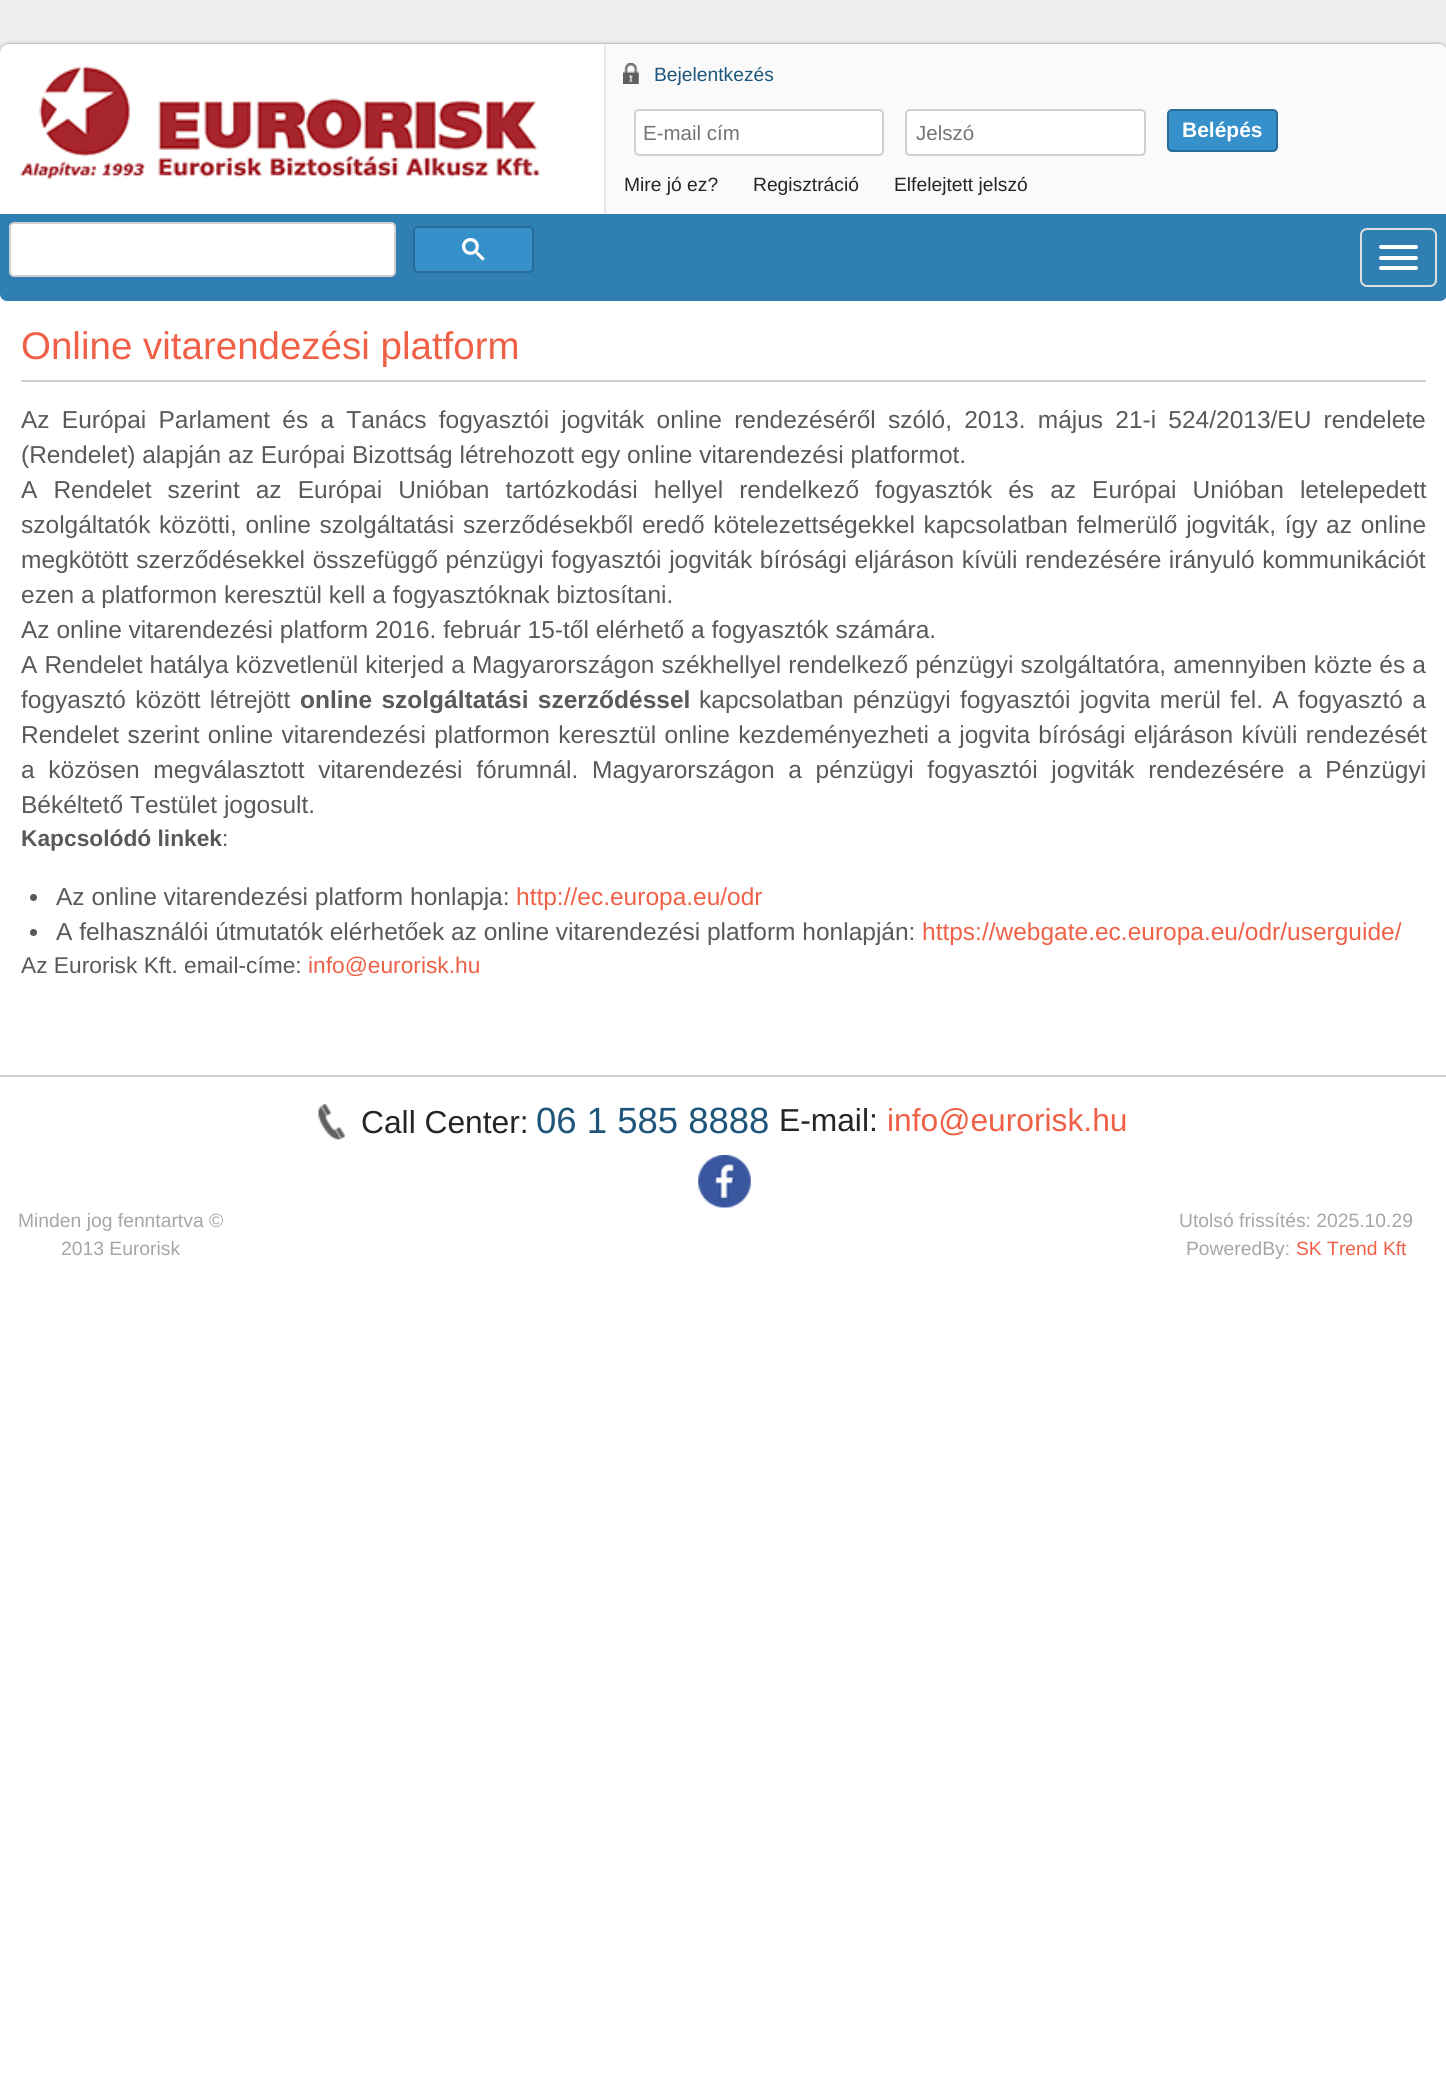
#include <cairo.h>
#include <math.h>
#include <stddef.h>


static void spaced_text(cairo_t *cr, double x, double y, const char *s, double letter, double word) {
    cairo_move_to(cr, x, y);
    while (*s) {
        char ch[5] = {0};
        int n = 0;
        do ch[n++] = *s++; while ((*s & 0xC0) == 0x80);
        cairo_show_text(cr, ch);
        cairo_rel_move_to(cr, letter + word * (*ch == ' '), 0);
    }
}

static void round_rect(cairo_t *cr, double x, double y, double w, double h, double r) {
    cairo_new_sub_path(cr);
    cairo_arc(cr, x + w - r, y + h - r, r, 0, M_PI / 2);
    cairo_arc(cr, x + r, y + h - r, r, M_PI / 2, M_PI);
    cairo_arc(cr, x + r, y + r, r, M_PI, 1.5 * M_PI);
    cairo_arc(cr, x + w - r, y + r, r, 1.5 * M_PI, 2 * M_PI);
    cairo_close_path(cr);
}

static void shadow(cairo_t *cr, double x, double y, double w, double h, double r, double blur, double alpha) {
    cairo_push_group_with_content(cr, CAIRO_CONTENT_ALPHA);
    cairo_set_operator(cr, CAIRO_OPERATOR_SOURCE);
    for (int i = 15; i >= -15 && fmin(w, h) + blur * i / 3 > 0; i -= 2) {
        double e = blur * i / 6;
        cairo_set_source_rgba(cr, 0, 0, 0, alpha * erfc((i - 1) / 8.5) / 2);
        round_rect(cr, x - e, y - e, w + 2 * e, h + 2 * e, fmax(0, fmin(r + e + blur * .6, fmin(w, h) / 2 + e)));
        cairo_fill(cr);
    }
    cairo_pattern_t *soft = cairo_pop_group(cr);
    cairo_mask(cr, soft);
    cairo_pattern_destroy(soft);
}

static void picture(cairo_t *cr, const char *path, double x, double y, double w, double h) {
    cairo_surface_t *image = cairo_image_surface_create_from_png(path);
    cairo_save(cr);
    cairo_set_source_surface(cr, image, x, y);
    cairo_rectangle(cr, x, y, w, h);
    cairo_fill(cr);
    cairo_restore(cr);
    cairo_surface_destroy(image);
}

int main(void) {
    cairo_surface_t *surface = cairo_image_surface_create(CAIRO_FORMAT_RGB24, 1446, 2081);
    cairo_t *cr = cairo_create(surface);
    cairo_font_options_t *options = cairo_font_options_create();
    cairo_font_options_set_hint_metrics(options, CAIRO_HINT_METRICS_OFF);
    cairo_font_options_set_hint_style(options, CAIRO_HINT_STYLE_NONE);
    cairo_set_font_options(cr, options);
    cairo_set_miter_limit(cr, 4);
    cairo_set_source_rgb(cr, 1, 1, 1);
    cairo_paint(cr);
    cairo_set_source_rgb(cr, 0.937, 0.937, 0.937);
    cairo_rectangle(cr, 0, 0, 1446, 53);
    cairo_fill(cr);
    cairo_set_source_rgb(cr, 0.569, 0.569, 0.569);
    shadow(cr, 0, 44, 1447, 170, 9, 2, 1);
    cairo_set_source_rgb(cr, 1, 1, 1);
    cairo_new_path(cr);
    cairo_move_to(cr, 9, 44);
    cairo_line_to(cr, 1438, 44);
    cairo_curve_to(cr, 1443, 44, 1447, 48, 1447, 53);
    cairo_line_to(cr, 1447, 214);
    cairo_line_to(cr, 0, 214);
    cairo_line_to(cr, 0, 53);
    cairo_curve_to(cr, 0, 48, 4, 44, 9, 44);
    cairo_close_path(cr);
    cairo_fill(cr);
    picture(cr, "img1.png", 20, 66, 520, 113);
    cairo_set_source_rgb(cr, 0.98, 0.98, 0.98);
    cairo_new_path(cr);
    cairo_move_to(cr, 604, 44);
    cairo_line_to(cr, 1438, 44);
    cairo_curve_to(cr, 1443, 44, 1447, 48, 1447, 53);
    cairo_line_to(cr, 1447, 214);
    cairo_line_to(cr, 604, 214);
    cairo_close_path(cr);
    cairo_fill(cr);
    cairo_set_source_rgb(cr, 0.906, 0.906, 0.906);
    cairo_rectangle(cr, 604, 44, 2, 170);
    cairo_fill(cr);
    picture(cr, "img2.png", 623, 63, 16, 21);
    cairo_select_font_face(cr, "Liberation Sans", CAIRO_FONT_SLANT_NORMAL, CAIRO_FONT_WEIGHT_NORMAL);
    cairo_set_font_size(cr, 19.25);
    cairo_set_source_rgb(cr, 0.114, 0.337, 0.478);
    cairo_move_to(cr, 654, 81);
    cairo_show_text(cr, "Bejelentkezés");
    cairo_set_source_rgb(cr, 1, 1, 1);
    round_rect(cr, 635, 110, 248, 45, 4);
    cairo_fill_preserve(cr);
    cairo_set_source_rgb(cr, 0.816, 0.816, 0.816);
    cairo_stroke(cr);
    cairo_set_font_size(cr, 20.5);
    cairo_set_source_rgb(cr, 0.459, 0.459, 0.459);
    cairo_move_to(cr, 643, 140);
    cairo_show_text(cr, "E-mail cím");
    cairo_set_source_rgb(cr, 1, 1, 1);
    round_rect(cr, 906, 110, 239, 45, 4);
    cairo_fill_preserve(cr);
    cairo_set_source_rgb(cr, 0.816, 0.816, 0.816);
    cairo_stroke(cr);
    cairo_set_source_rgb(cr, 0.459, 0.459, 0.459);
    cairo_move_to(cr, 916, 140);
    cairo_show_text(cr, "Jelszó");
    cairo_set_source_rgb(cr, 0.212, 0.565, 0.788);
    round_rect(cr, 1168, 110, 109, 41, 4);
    cairo_fill_preserve(cr);
    cairo_set_source_rgb(cr, 0.153, 0.42, 0.592);
    cairo_stroke(cr);
    cairo_select_font_face(cr, "Liberation Sans", CAIRO_FONT_SLANT_NORMAL, CAIRO_FONT_WEIGHT_BOLD);
    cairo_set_font_size(cr, 21);
    cairo_set_source_rgb(cr, 1, 1, 1);
    cairo_move_to(cr, 1182, 137);
    cairo_show_text(cr, "Belépés");
    cairo_select_font_face(cr, "Liberation Sans", CAIRO_FONT_SLANT_NORMAL, CAIRO_FONT_WEIGHT_NORMAL);
    cairo_set_font_size(cr, 19.25);
    cairo_set_source_rgb(cr, 0.145, 0.145, 0.145);
    cairo_move_to(cr, 624, 191);
    cairo_show_text(cr, "Mire jó ez?");
    cairo_move_to(cr, 753, 191);
    cairo_show_text(cr, "Regisztráció");
    cairo_move_to(cr, 894, 191);
    cairo_show_text(cr, "Elfelejtett jelszó");
    cairo_set_source_rgb(cr, 0.184, 0.498, 0.698);
    cairo_rectangle(cr, 0, 214, 1446, 7);
    cairo_fill(cr);
    round_rect(cr, 0, 214, 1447, 87, 7);
    cairo_fill(cr);
    cairo_set_source_rgb(cr, 1, 1, 1);
    round_rect(cr, 10, 223, 385, 53, 4);
    cairo_fill_preserve(cr);
    cairo_set_source_rgb(cr, 0.816, 0.816, 0.816);
    cairo_stroke(cr);
    cairo_set_source_rgb(cr, 0.212, 0.565, 0.788);
    round_rect(cr, 414, 227, 119, 45, 4);
    cairo_fill_preserve(cr);
    cairo_set_source_rgb(cr, 0.153, 0.42, 0.592);
    cairo_stroke(cr);
    picture(cr, "img3.png", 462, 238, 23, 23);
    round_rect(cr, 1361, 229, 75, 57, 6);
    cairo_set_source_rgb(cr, 0.867, 0.867, 0.867);
    cairo_stroke(cr);
    cairo_set_source_rgb(cr, 1, 1, 1);
    round_rect(cr, 1379, 245, 39, 4, 2);
    cairo_fill(cr);
    round_rect(cr, 1379, 256, 39, 4, 2);
    cairo_fill(cr);
    round_rect(cr, 1379, 266, 39, 4, 2);
    cairo_fill(cr);
    cairo_set_source_rgb(cr, 0.816, 0.816, 0.816);
    cairo_rectangle(cr, 21, 380, 1405, 2);
    cairo_fill(cr);
    cairo_set_font_size(cr, 38.5);
    cairo_set_source_rgb(cr, 0.941, 0.376, 0.275);
    cairo_move_to(cr, 21, 359);
    cairo_show_text(cr, "Online vitarendezési platform");
    cairo_set_font_size(cr, 24.5);
    cairo_set_source_rgb(cr, 0.349, 0.349, 0.349);
    spaced_text(cr, 21, 428, "Az Európai Parlament és a Tanács fogyasztói jogviták online rendezéséről szóló, 2013. május 21-i 524/2013/EU rendelete", 0, 5.4);
    cairo_move_to(cr, 21, 463);
    cairo_show_text(cr, "(Rendelet) alapján az Európai Bizottság létrehozott egy online vitarendezési platformot.");
    spaced_text(cr, 21, 498, "A Rendelet szerint az Európai Unióban tartózkodási hellyel rendelkező fogyasztók és az Európai Unióban letelepedett", 0, 9.25);
    spaced_text(cr, 21, 533, "szolgáltatók közötti, online szolgáltatási szerződésekből eredő kötelezettségekkel kapcsolatban felmerülő jogviták, így az online", 0, 1.9);
    spaced_text(cr, 21, 568, "megkötött szerződésekkel összefüggő pénzügyi fogyasztói jogviták bírósági eljáráson kívüli rendezésére irányuló kommunikációt", 0, 0.8);
    cairo_move_to(cr, 21, 603);
    cairo_show_text(cr, "ezen a platformon keresztül kell a fogyasztóknak biztosítani.");
    cairo_move_to(cr, 21, 638);
    cairo_show_text(cr, "Az online vitarendezési platform 2016. február 15-től elérhető a fogyasztók számára.");
    spaced_text(cr, 21, 673, "A Rendelet hatálya közvetlenül kiterjed a Magyarországon székhellyel rendelkező pénzügyi szolgáltatóra, amennyiben közte és a", 0, 0.25);
    spaced_text(cr, 21, 708, "fogyasztó között létrejött", 0, 2.5);
    cairo_select_font_face(cr, "Liberation Sans", CAIRO_FONT_SLANT_NORMAL, CAIRO_FONT_WEIGHT_BOLD);
    spaced_text(cr, 300, 708, "online szolgáltatási szerződéssel", 0, 2.5);
    cairo_select_font_face(cr, "Liberation Sans", CAIRO_FONT_SLANT_NORMAL, CAIRO_FONT_WEIGHT_NORMAL);
    spaced_text(cr, 699, 708, "kapcsolatban pénzügyi fogyasztói jogvita merül fel. A fogyasztó a", 0, 2.5);
    spaced_text(cr, 21, 743, "Rendelet szerint online vitarendezési platformon keresztül online kezdeményezheti a jogvita bírósági eljáráson kívüli rendezését", 0, 1.5);
    spaced_text(cr, 21, 778, "a közösen megválasztott vitarendezési fórumnál. Magyarországon a pénzügyi fogyasztói jogviták rendezésére a Pénzügyi", 0, 6.9);
    cairo_move_to(cr, 21, 813);
    cairo_show_text(cr, "Békéltető Testület jogosult.");
    cairo_select_font_face(cr, "Liberation Sans", CAIRO_FONT_SLANT_NORMAL, CAIRO_FONT_WEIGHT_BOLD);
    cairo_set_font_size(cr, 22.75);
    cairo_move_to(cr, 21, 846);
    cairo_show_text(cr, "Kapcsolódó linkek");
    cairo_select_font_face(cr, "Liberation Sans", CAIRO_FONT_SLANT_NORMAL, CAIRO_FONT_WEIGHT_NORMAL);
    cairo_move_to(cr, 222, 846);
    cairo_show_text(cr, ":");
    cairo_new_path(cr);
    cairo_arc(cr, 33.5, 897.5, 3.5, 0, 2 * M_PI);
    cairo_fill(cr);
    cairo_set_font_size(cr, 24.5);
    cairo_move_to(cr, 56, 905);
    cairo_show_text(cr, "Az online vitarendezési platform honlapja:");
    cairo_set_source_rgb(cr, 0.941, 0.376, 0.275);
    cairo_move_to(cr, 516, 905);
    cairo_show_text(cr, "http://ec.europa.eu/odr");
    cairo_set_source_rgb(cr, 0.349, 0.349, 0.349);
    cairo_new_path(cr);
    cairo_arc(cr, 33.5, 932.5, 3.5, 0, 2 * M_PI);
    cairo_fill(cr);
    cairo_move_to(cr, 56, 940);
    cairo_show_text(cr, "A felhasználói útmutatók elérhetőek az online vitarendezési platform honlapján:");
    cairo_set_source_rgb(cr, 0.941, 0.376, 0.275);
    cairo_move_to(cr, 922, 940);
    cairo_show_text(cr, "https://webgate.ec.europa.eu/odr/userguide/");
    cairo_set_font_size(cr, 22.75);
    cairo_set_source_rgb(cr, 0.349, 0.349, 0.349);
    cairo_move_to(cr, 21, 973);
    cairo_show_text(cr, "Az Eurorisk Kft. email-címe:");
    cairo_set_source_rgb(cr, 0.941, 0.376, 0.275);
    cairo_move_to(cr, 308, 973);
    cairo_show_text(cr, "info@eurorisk.hu");
    cairo_set_source_rgb(cr, 0.816, 0.816, 0.816);
    cairo_rectangle(cr, 0, 1075, 1446, 2);
    cairo_fill(cr);
    picture(cr, "img4.png", 318, 1104, 27, 36);
    cairo_set_font_size(cr, 31.75);
    cairo_set_source_rgb(cr, 0.145, 0.145, 0.145);
    cairo_move_to(cr, 361, 1133);
    cairo_show_text(cr, "Call Center:");
    cairo_set_font_size(cr, 36.5);
    cairo_set_source_rgb(cr, 0.114, 0.337, 0.478);
    cairo_move_to(cr, 536, 1133);
    cairo_show_text(cr, "06 1 585 8888");
    cairo_set_font_size(cr, 31.75);
    cairo_set_source_rgb(cr, 0.145, 0.145, 0.145);
    cairo_move_to(cr, 779, 1131);
    cairo_show_text(cr, "E-mail:");
    cairo_set_source_rgb(cr, 0.941, 0.376, 0.275);
    cairo_move_to(cr, 887, 1131);
    cairo_show_text(cr, "info@eurorisk.hu");
    picture(cr, "img5.png", 698, 1155, 53, 53);
    cairo_set_font_size(cr, 19.3);
    cairo_set_source_rgb(cr, 0.651, 0.651, 0.651);
    cairo_move_to(cr, 18, 1227);
    cairo_show_text(cr, "Minden jog fenntartva ©");
    cairo_move_to(cr, 61, 1255);
    cairo_show_text(cr, "2013 Eurorisk");
    cairo_move_to(cr, 1179, 1227);
    cairo_show_text(cr, "Utolsó frissítés: 2025.10.29");
    cairo_move_to(cr, 1186, 1255);
    cairo_show_text(cr, "PoweredBy:");
    cairo_set_source_rgb(cr, 0.941, 0.376, 0.275);
    cairo_move_to(cr, 1296, 1255);
    cairo_show_text(cr, "SK Trend Kft");
    cairo_surface_write_to_png(surface, "page.png");
    cairo_font_options_destroy(options);
    cairo_destroy(cr);
    cairo_surface_destroy(surface);
    return 0;
}
